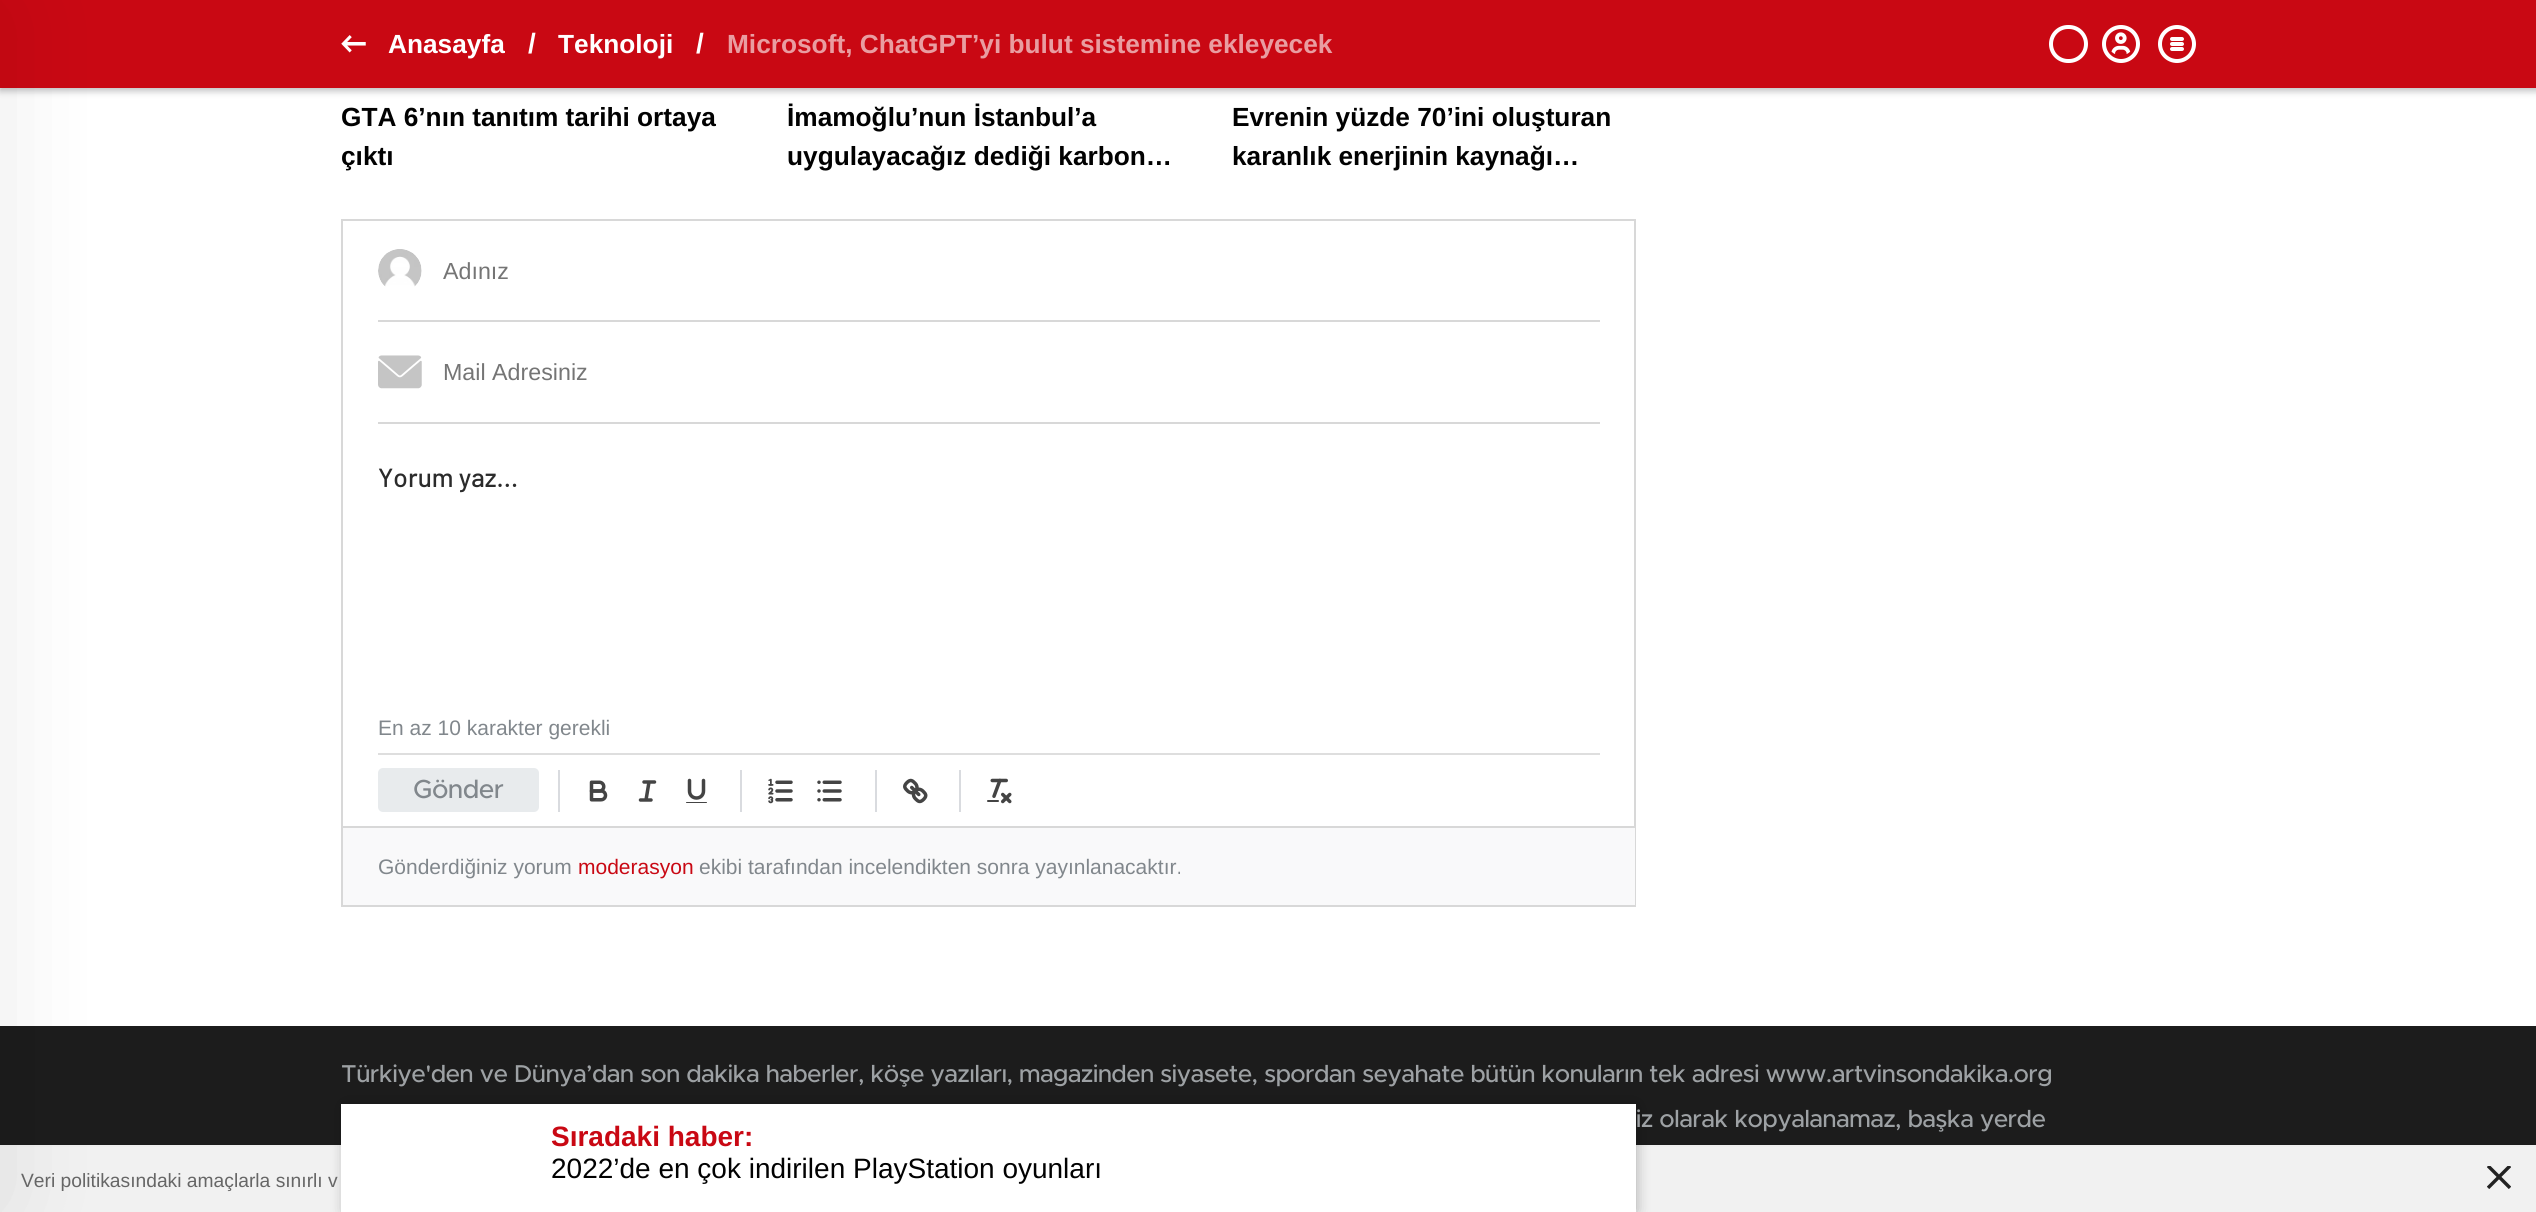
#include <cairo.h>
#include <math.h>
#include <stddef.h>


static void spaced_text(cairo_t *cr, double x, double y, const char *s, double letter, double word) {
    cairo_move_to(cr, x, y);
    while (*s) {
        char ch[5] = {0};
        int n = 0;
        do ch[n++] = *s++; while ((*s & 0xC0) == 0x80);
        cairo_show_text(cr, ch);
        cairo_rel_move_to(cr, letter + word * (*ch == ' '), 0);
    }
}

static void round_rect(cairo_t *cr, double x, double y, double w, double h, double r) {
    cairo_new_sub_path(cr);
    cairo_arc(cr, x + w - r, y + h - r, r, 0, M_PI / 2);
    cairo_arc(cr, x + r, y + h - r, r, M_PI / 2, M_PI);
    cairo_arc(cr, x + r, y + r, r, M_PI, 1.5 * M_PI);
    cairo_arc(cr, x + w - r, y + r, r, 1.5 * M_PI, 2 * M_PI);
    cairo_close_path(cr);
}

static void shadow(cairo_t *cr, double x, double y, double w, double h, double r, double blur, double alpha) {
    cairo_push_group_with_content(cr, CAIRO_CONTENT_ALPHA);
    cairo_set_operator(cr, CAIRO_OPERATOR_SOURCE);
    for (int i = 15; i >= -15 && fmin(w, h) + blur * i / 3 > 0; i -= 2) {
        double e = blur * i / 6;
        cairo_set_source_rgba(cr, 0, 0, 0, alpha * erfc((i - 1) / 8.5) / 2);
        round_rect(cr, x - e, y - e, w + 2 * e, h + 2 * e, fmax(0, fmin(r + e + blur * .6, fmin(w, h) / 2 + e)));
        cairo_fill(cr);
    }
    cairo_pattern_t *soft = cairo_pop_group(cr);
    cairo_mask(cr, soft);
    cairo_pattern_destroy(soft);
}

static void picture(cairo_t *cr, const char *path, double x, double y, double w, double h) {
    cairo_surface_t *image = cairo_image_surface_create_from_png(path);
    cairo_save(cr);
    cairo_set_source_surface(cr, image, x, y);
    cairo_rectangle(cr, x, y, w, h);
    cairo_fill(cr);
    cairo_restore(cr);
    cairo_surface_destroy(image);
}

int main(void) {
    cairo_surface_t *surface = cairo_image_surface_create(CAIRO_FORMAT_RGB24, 2536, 1212);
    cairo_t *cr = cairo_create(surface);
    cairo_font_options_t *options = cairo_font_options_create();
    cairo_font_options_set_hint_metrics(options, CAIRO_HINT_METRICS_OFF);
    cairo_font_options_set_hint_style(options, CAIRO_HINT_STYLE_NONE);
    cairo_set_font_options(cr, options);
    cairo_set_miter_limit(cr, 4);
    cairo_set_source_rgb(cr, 1, 1, 1);
    cairo_paint(cr);
    cairo_set_source_rgb(cr, 0.067, 0.082, 0.098);
    shadow(cr, 0, 4, 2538, 87, 0, 3.5, 0.28);
    cairo_set_source_rgb(cr, 0.788, 0.035, 0.078);
    cairo_rectangle(cr, 0, 0, 2536, 88);
    cairo_fill(cr);
    cairo_set_source_rgb(cr, 0.11, 0.11, 0.11);
    cairo_rectangle(cr, 0, 1026, 2536, 119);
    cairo_fill(cr);
    cairo_set_source_rgb(cr, 0.945, 0.945, 0.945);
    cairo_rectangle(cr, 0, 1147, 2536, 65);
    cairo_fill(cr);
    cairo_set_source_rgb(cr, 0.933, 0.933, 0.933);
    cairo_rectangle(cr, 0, 1145, 2536, 2);
    cairo_fill(cr);
    cairo_set_source_rgb(cr, 0, 0, 0);
    shadow(cr, -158, 9, 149, 1195, 0, 52.5, 0.1);
    picture(cr, "img1.png", 341, 35, 25, 18);
    cairo_select_font_face(cr, "Liberation Sans", CAIRO_FONT_SLANT_NORMAL, CAIRO_FONT_WEIGHT_BOLD);
    cairo_set_font_size(cr, 26.25);
    cairo_set_source_rgb(cr, 1, 1, 1);
    cairo_move_to(cr, 388, 53);
    cairo_show_text(cr, "Anasayfa");
    cairo_set_font_size(cr, 28);
    cairo_move_to(cr, 528, 53);
    cairo_show_text(cr, "/");
    cairo_set_font_size(cr, 26.25);
    cairo_move_to(cr, 558, 53);
    cairo_show_text(cr, "Teknoloji");
    cairo_set_font_size(cr, 28);
    cairo_move_to(cr, 696, 53);
    cairo_show_text(cr, "/");
    cairo_set_font_size(cr, 26.25);
    cairo_set_source_rgb(cr, 0.914, 0.616, 0.631);
    cairo_move_to(cr, 727, 53);
    cairo_show_text(cr, "Microsoft, ChatGPT’yi bulut sistemine ekleyecek");
    round_rect(cr, 2051, 27, 35, 34, 17);
    cairo_set_source_rgb(cr, 1, 1, 1);
    cairo_set_line_width(cr, 4);
    cairo_stroke(cr);
    cairo_arc(cr, 2121, 44, 17, 0, 2 * M_PI);
    cairo_stroke(cr);
    picture(cr, "img2.png", 2111, 32, 20, 22);
    cairo_arc(cr, 2177, 44, 17, 0, 2 * M_PI);
    cairo_stroke(cr);
    round_rect(cr, 2170, 37, 14, 4, 2);
    cairo_fill(cr);
    round_rect(cr, 2170, 42, 14, 4, 2);
    cairo_fill(cr);
    round_rect(cr, 2170, 47, 14, 4, 2);
    cairo_fill(cr);
    cairo_set_source_rgb(cr, 0.004, 0.004, 0.004);
    cairo_move_to(cr, 341, 126);
    cairo_show_text(cr, "GTA 6’nın tanıtım tarihi ortaya");
    cairo_move_to(cr, 341, 165);
    cairo_show_text(cr, "çıktı");
    cairo_move_to(cr, 787, 126);
    cairo_show_text(cr, "İmamoğlu’nun İstanbul’a");
    cairo_move_to(cr, 787, 165);
    cairo_show_text(cr, "uygulayacağız dediği karbon…");
    cairo_move_to(cr, 1232, 126);
    cairo_show_text(cr, "Evrenin yüzde 70’ini oluşturan");
    cairo_move_to(cr, 1232, 165);
    cairo_show_text(cr, "karanlık enerjinin kaynağı…");
    cairo_rectangle(cr, 342, 220, 1293, 686);
    cairo_set_source_rgb(cr, 0.847, 0.847, 0.847);
    cairo_set_line_width(cr, 2);
    cairo_stroke(cr);
    cairo_rectangle(cr, 378, 320, 1222, 2);
    cairo_fill(cr);
    picture(cr, "img3.png", 378, 249, 44, 38);
    cairo_select_font_face(cr, "Liberation Sans", CAIRO_FONT_SLANT_NORMAL, CAIRO_FONT_WEIGHT_NORMAL);
    cairo_set_font_size(cr, 23.25);
    cairo_set_source_rgb(cr, 0.459, 0.459, 0.459);
    cairo_move_to(cr, 443, 279);
    cairo_show_text(cr, "Adınız");
    cairo_set_source_rgb(cr, 0.847, 0.847, 0.847);
    cairo_rectangle(cr, 378, 422, 1222, 2);
    cairo_fill(cr);
    picture(cr, "img4.png", 378, 355, 44, 34);
    cairo_set_source_rgb(cr, 0.459, 0.459, 0.459);
    cairo_move_to(cr, 443, 380);
    cairo_show_text(cr, "Mail Adresiniz");
    cairo_select_font_face(cr, "Barlow Medium", CAIRO_FONT_SLANT_NORMAL, CAIRO_FONT_WEIGHT_NORMAL);
    cairo_set_font_size(cr, 26.25);
    cairo_set_source_rgb(cr, 0.169, 0.169, 0.169);
    cairo_move_to(cr, 378, 487);
    cairo_show_text(cr, "Yorum yaz...");
    cairo_select_font_face(cr, "Liberation Sans", CAIRO_FONT_SLANT_NORMAL, CAIRO_FONT_WEIGHT_NORMAL);
    cairo_set_font_size(cr, 21);
    cairo_set_source_rgb(cr, 0.506, 0.529, 0.549);
    cairo_move_to(cr, 378, 735);
    cairo_show_text(cr, "En az 10 karakter gerekli");
    cairo_set_source_rgb(cr, 0.871, 0.871, 0.871);
    cairo_rectangle(cr, 378, 753, 1222, 2);
    cairo_fill(cr);
    cairo_set_source_rgb(cr, 0.91, 0.918, 0.929);
    round_rect(cr, 378, 768, 161, 44, 5);
    cairo_fill(cr);
    cairo_select_font_face(cr, "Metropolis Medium", CAIRO_FONT_SLANT_NORMAL, CAIRO_FONT_WEIGHT_NORMAL);
    cairo_set_font_size(cr, 26.25);
    cairo_set_source_rgb(cr, 0.506, 0.529, 0.549);
    cairo_move_to(cr, 413, 798);
    cairo_show_text(cr, "Gönder");
    cairo_set_source_rgb(cr, 0.851, 0.859, 0.875);
    cairo_rectangle(cr, 558, 770, 2, 42);
    cairo_fill(cr);
    picture(cr, "img5.png", 589, 780, 19, 22);
    cairo_new_path(cr);
    cairo_move_to(cr, 644, 782);
    cairo_line_to(cr, 654.5, 782);
    cairo_move_to(cr, 640.5, 800);
    cairo_line_to(cr, 651, 800);
    cairo_move_to(cr, 646, 800);
    cairo_line_to(cr, 649, 782);
    cairo_set_source_rgb(cr, 0.267, 0.267, 0.267);
    cairo_set_line_width(cr, 3.5);
    cairo_set_line_cap(cr, CAIRO_LINE_CAP_ROUND);
    cairo_set_line_join(cr, CAIRO_LINE_JOIN_ROUND);
    cairo_stroke(cr);
    cairo_new_path(cr);
    cairo_move_to(cr, 689.5, 780.5);
    cairo_line_to(cr, 689.5, 791);
    cairo_curve_to(cr, 689.5, 795, 692.5, 798, 696.5, 798);
    cairo_curve_to(cr, 700.5, 798, 703.5, 795, 703.5, 791);
    cairo_line_to(cr, 703.5, 780.5);
    cairo_stroke(cr);
    round_rect(cr, 686, 802, 21, 1, 0.5);
    cairo_fill(cr);
    cairo_set_source_rgb(cr, 0.851, 0.859, 0.875);
    cairo_rectangle(cr, 740, 770, 2, 42);
    cairo_fill(cr);
    picture(cr, "img6.png", 768, 778, 25, 26);
    picture(cr, "img7.png", 817, 780, 25, 22);
    cairo_rectangle(cr, 875, 770, 2, 42);
    cairo_fill(cr);
    picture(cr, "img8.png", 903, 778, 25, 26);
    cairo_rectangle(cr, 959, 770, 2, 42);
    cairo_fill(cr);
    picture(cr, "img9.png", 987, 778, 25, 26);
    cairo_set_source_rgb(cr, 0.973, 0.976, 0.98);
    cairo_rectangle(cr, 343, 828, 1292, 77);
    cairo_fill(cr);
    cairo_set_source_rgb(cr, 0.847, 0.847, 0.847);
    cairo_rectangle(cr, 343, 826, 1292, 2);
    cairo_fill(cr);
    cairo_select_font_face(cr, "Liberation Sans", CAIRO_FONT_SLANT_NORMAL, CAIRO_FONT_WEIGHT_NORMAL);
    cairo_set_font_size(cr, 21);
    cairo_set_source_rgb(cr, 0.506, 0.529, 0.549);
    cairo_move_to(cr, 378, 874);
    cairo_show_text(cr, "Gönderdiğiniz yorum");
    cairo_set_source_rgb(cr, 0.788, 0.035, 0.078);
    cairo_move_to(cr, 578, 874);
    cairo_show_text(cr, "moderasyon");
    cairo_set_source_rgb(cr, 0.506, 0.529, 0.549);
    cairo_move_to(cr, 699, 874);
    cairo_show_text(cr, "ekibi tarafından incelendikten sonra yayınlanacaktır.");
    cairo_set_source_rgb(cr, 0, 0, 0);
    shadow(cr, 345, 1106, 1291, 105, 0, 7, 0.3);
    cairo_set_source_rgb(cr, 1, 1, 1);
    cairo_rectangle(cr, 341, 1104, 1295, 108);
    cairo_fill(cr);
    cairo_select_font_face(cr, "Liberation Sans", CAIRO_FONT_SLANT_NORMAL, CAIRO_FONT_WEIGHT_BOLD);
    cairo_set_font_size(cr, 28);
    cairo_set_source_rgb(cr, 0.788, 0.035, 0.078);
    cairo_move_to(cr, 551, 1146);
    cairo_show_text(cr, "Sıradaki haber:");
    cairo_select_font_face(cr, "Liberation Sans", CAIRO_FONT_SLANT_NORMAL, CAIRO_FONT_WEIGHT_NORMAL);
    cairo_set_source_rgb(cr, 0.004, 0.004, 0.004);
    cairo_move_to(cr, 551, 1178);
    cairo_show_text(cr, "2022’de en çok indirilen PlayStation oyunları");
    cairo_select_font_face(cr, "Metropolis Medium", CAIRO_FONT_SLANT_NORMAL, CAIRO_FONT_WEIGHT_NORMAL);
    cairo_set_font_size(cr, 24.5);
    cairo_set_source_rgb(cr, 0.616, 0.631, 0.643);
    spaced_text(cr, 341, 1082, "Türkiye'den ve Dünya’dan son dakika haberler, köşe yazıları, magazinden siyasete, spordan seyahate bütün konuların tek adresi www.artvinsondakika.org", -0.18, 0);
    spaced_text(cr, 1636, 1127, "iz olarak kopyalanamaz, başka yerde", -0.18, 0);
    cairo_select_font_face(cr, "Liberation Sans", CAIRO_FONT_SLANT_NORMAL, CAIRO_FONT_WEIGHT_NORMAL);
    cairo_set_font_size(cr, 19.25);
    cairo_set_source_rgb(cr, 0.4, 0.4, 0.4);
    cairo_move_to(cr, 21, 1187);
    cairo_show_text(cr, "Veri politikasındaki amaçlarla sınırlı v");
    picture(cr, "img10.png", 2487, 1166, 24, 23);
    cairo_surface_write_to_png(surface, "page.png");
    cairo_font_options_destroy(options);
    cairo_destroy(cr);
    cairo_surface_destroy(surface);
    return 0;
}
